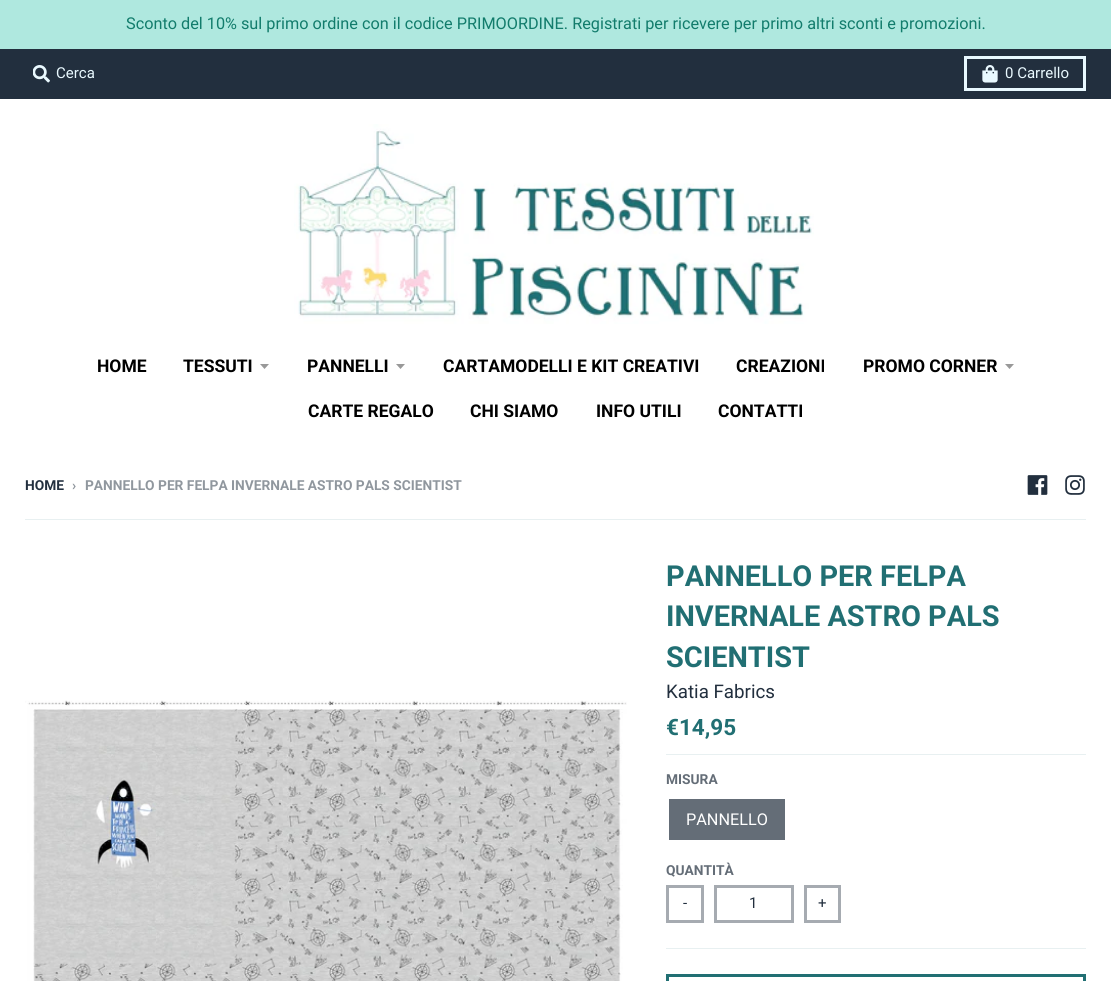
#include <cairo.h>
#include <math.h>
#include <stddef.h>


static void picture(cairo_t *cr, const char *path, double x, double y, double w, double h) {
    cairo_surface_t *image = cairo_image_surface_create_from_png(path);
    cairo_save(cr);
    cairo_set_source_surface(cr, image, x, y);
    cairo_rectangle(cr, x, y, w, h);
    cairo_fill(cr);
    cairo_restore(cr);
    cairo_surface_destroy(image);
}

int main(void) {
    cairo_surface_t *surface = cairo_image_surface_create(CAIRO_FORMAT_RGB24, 1111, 981);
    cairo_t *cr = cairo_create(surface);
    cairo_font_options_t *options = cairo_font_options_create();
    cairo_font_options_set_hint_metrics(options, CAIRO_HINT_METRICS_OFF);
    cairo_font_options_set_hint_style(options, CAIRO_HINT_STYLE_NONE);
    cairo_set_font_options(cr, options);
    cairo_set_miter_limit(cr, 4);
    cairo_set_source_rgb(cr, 1, 1, 1);
    cairo_paint(cr);
    cairo_set_source_rgb(cr, 0.686, 0.91, 0.875);
    cairo_rectangle(cr, 0, 0, 1111, 49);
    cairo_fill(cr);
    cairo_select_font_face(cr, "Roboto", CAIRO_FONT_SLANT_NORMAL, CAIRO_FONT_WEIGHT_NORMAL);
    cairo_set_font_size(cr, 16.25);
    cairo_set_source_rgb(cr, 0.071, 0.486, 0.424);
    cairo_move_to(cr, 126, 29);
    cairo_show_text(cr, "Sconto del 10% sul primo ordine con il codice PRIMOORDINE. Registrati per ricevere per primo altri sconti e promozioni.");
    cairo_set_source_rgb(cr, 0.133, 0.184, 0.243);
    cairo_rectangle(cr, 0, 49, 1111, 50);
    cairo_fill(cr);
    picture(cr, "img1.png", 33, 65, 17, 18);
    cairo_set_font_size(cr, 15);
    cairo_set_source_rgb(cr, 0.914, 0.976, 1);
    cairo_move_to(cr, 56, 78);
    cairo_show_text(cr, "Cerca");
    cairo_rectangle(cr, 965.5, 57.5, 119, 32);
    cairo_set_line_width(cr, 3);
    cairo_stroke(cr);
    picture(cr, "img2.png", 982, 65, 16, 18);
    cairo_move_to(cr, 1005, 78);
    cairo_show_text(cr, "0 Carrello");
    picture(cr, "img3.png", 294, 124, 520, 200);
    cairo_select_font_face(cr, "Roboto", CAIRO_FONT_SLANT_NORMAL, CAIRO_FONT_WEIGHT_BOLD);
    cairo_set_font_size(cr, 17.5);
    cairo_set_source_rgb(cr, 0, 0, 0);
    cairo_move_to(cr, 97, 372);
    cairo_show_text(cr, "HOME");
    cairo_move_to(cr, 183, 372);
    cairo_show_text(cr, "TESSUTI");
    cairo_set_source_rgb(cr, 0.6, 0.6, 0.6);
    cairo_new_path(cr);
    cairo_move_to(cr, 260, 364);
    cairo_line_to(cr, 264.5, 369);
    cairo_line_to(cr, 269, 364);
    cairo_close_path(cr);
    cairo_fill(cr);
    cairo_set_source_rgb(cr, 0, 0, 0);
    cairo_move_to(cr, 307, 372);
    cairo_show_text(cr, "PANNELLI");
    cairo_set_source_rgb(cr, 0.6, 0.6, 0.6);
    cairo_new_path(cr);
    cairo_move_to(cr, 396, 364);
    cairo_line_to(cr, 400.5, 369);
    cairo_line_to(cr, 405, 364);
    cairo_close_path(cr);
    cairo_fill(cr);
    cairo_set_source_rgb(cr, 0, 0, 0);
    cairo_move_to(cr, 443, 372);
    cairo_show_text(cr, "CARTAMODELLI E KIT CREATIVI");
    cairo_move_to(cr, 736, 372);
    cairo_show_text(cr, "CREAZIONI");
    cairo_move_to(cr, 863, 372);
    cairo_show_text(cr, "PROMO CORNER");
    cairo_set_source_rgb(cr, 0.6, 0.6, 0.6);
    cairo_new_path(cr);
    cairo_move_to(cr, 1005, 364);
    cairo_line_to(cr, 1009.5, 369);
    cairo_line_to(cr, 1014, 364);
    cairo_close_path(cr);
    cairo_fill(cr);
    cairo_set_source_rgb(cr, 0, 0, 0);
    cairo_move_to(cr, 308, 417);
    cairo_show_text(cr, "CARTE REGALO");
    cairo_move_to(cr, 470, 417);
    cairo_show_text(cr, "CHI SIAMO");
    cairo_move_to(cr, 596, 417);
    cairo_show_text(cr, "INFO UTILI");
    cairo_move_to(cr, 718, 417);
    cairo_show_text(cr, "CONTATTI");
    cairo_set_font_size(cr, 13.75);
    cairo_set_source_rgb(cr, 0.133, 0.184, 0.243);
    cairo_move_to(cr, 25, 490);
    cairo_show_text(cr, "HOME");
    cairo_set_source_rgb(cr, 0.565, 0.592, 0.62);
    cairo_move_to(cr, 72, 490);
    cairo_show_text(cr, "›");
    cairo_move_to(cr, 85, 490);
    cairo_show_text(cr, "PANNELLO PER FELPA INVERNALE ASTRO PALS SCIENTIST");
    picture(cr, "img4.png", 1027, 475, 21, 20);
    picture(cr, "img5.png", 1065, 475, 20, 20);
    cairo_set_source_rgb(cr, 0.91, 0.941, 0.945);
    cairo_rectangle(cr, 25, 519, 1061, 1);
    cairo_fill(cr);
    picture(cr, "img6.png", 25, 700, 602, 281);
    cairo_set_font_size(cr, 28.9);
    cairo_set_source_rgb(cr, 0.129, 0.435, 0.451);
    cairo_move_to(cr, 666, 586);
    cairo_show_text(cr, "PANNELLO PER FELPA");
    cairo_move_to(cr, 666, 626);
    cairo_show_text(cr, "INVERNALE ASTRO PALS");
    cairo_move_to(cr, 666, 667);
    cairo_show_text(cr, "SCIENTIST");
    cairo_select_font_face(cr, "Roboto", CAIRO_FONT_SLANT_NORMAL, CAIRO_FONT_WEIGHT_NORMAL);
    cairo_set_font_size(cr, 18.75);
    cairo_set_source_rgb(cr, 0.133, 0.184, 0.243);
    cairo_move_to(cr, 666, 698);
    cairo_show_text(cr, "Katia Fabrics");
    cairo_set_source_rgb(cr, 0.91, 0.941, 0.945);
    cairo_rectangle(cr, 666, 754, 420, 1);
    cairo_fill(cr);
    cairo_select_font_face(cr, "Roboto", CAIRO_FONT_SLANT_NORMAL, CAIRO_FONT_WEIGHT_BOLD);
    cairo_set_font_size(cr, 22.5);
    cairo_set_source_rgb(cr, 0.129, 0.435, 0.451);
    cairo_move_to(cr, 666, 735);
    cairo_show_text(cr, "€14,95");
    cairo_set_source_rgb(cr, 0.91, 0.941, 0.945);
    cairo_rectangle(cr, 666, 948, 420, 1);
    cairo_fill(cr);
    cairo_set_font_size(cr, 13.75);
    cairo_set_source_rgb(cr, 0.392, 0.427, 0.467);
    cairo_move_to(cr, 666, 784);
    cairo_show_text(cr, "MISURA");
    cairo_rectangle(cr, 669, 799, 116, 41);
    cairo_fill(cr);
    cairo_select_font_face(cr, "Roboto", CAIRO_FONT_SLANT_NORMAL, CAIRO_FONT_WEIGHT_NORMAL);
    cairo_set_font_size(cr, 16.25);
    cairo_set_source_rgb(cr, 1, 1, 1);
    cairo_move_to(cr, 686, 825);
    cairo_show_text(cr, "PANNELLO");
    cairo_select_font_face(cr, "Roboto", CAIRO_FONT_SLANT_NORMAL, CAIRO_FONT_WEIGHT_BOLD);
    cairo_set_font_size(cr, 13.75);
    cairo_set_source_rgb(cr, 0.392, 0.427, 0.467);
    cairo_move_to(cr, 666, 875);
    cairo_show_text(cr, "QUANTITÀ");
    cairo_rectangle(cr, 667.5, 886.5, 35, 35);
    cairo_set_source_rgb(cr, 0.651, 0.671, 0.694);
    cairo_stroke(cr);
    cairo_select_font_face(cr, "Roboto", CAIRO_FONT_SLANT_NORMAL, CAIRO_FONT_WEIGHT_NORMAL);
    cairo_set_font_size(cr, 15);
    cairo_set_source_rgb(cr, 0.133, 0.184, 0.243);
    cairo_move_to(cr, 683, 908);
    cairo_show_text(cr, "-");
    cairo_rectangle(cr, 715.5, 886.5, 77, 35);
    cairo_set_source_rgb(cr, 0.651, 0.671, 0.694);
    cairo_stroke(cr);
    cairo_set_source_rgb(cr, 0.133, 0.184, 0.243);
    cairo_move_to(cr, 749, 908);
    cairo_show_text(cr, "1");
    cairo_rectangle(cr, 805.5, 886.5, 34, 35);
    cairo_set_source_rgb(cr, 0.651, 0.671, 0.694);
    cairo_stroke(cr);
    cairo_set_source_rgb(cr, 0.133, 0.184, 0.243);
    cairo_move_to(cr, 818, 908);
    cairo_show_text(cr, "+");
    cairo_rectangle(cr, 667.5, 975.5, 417, 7);
    cairo_set_source_rgb(cr, 0.129, 0.435, 0.451);
    cairo_stroke(cr);
    cairo_surface_write_to_png(surface, "page.png");
    cairo_font_options_destroy(options);
    cairo_destroy(cr);
    cairo_surface_destroy(surface);
    return 0;
}
